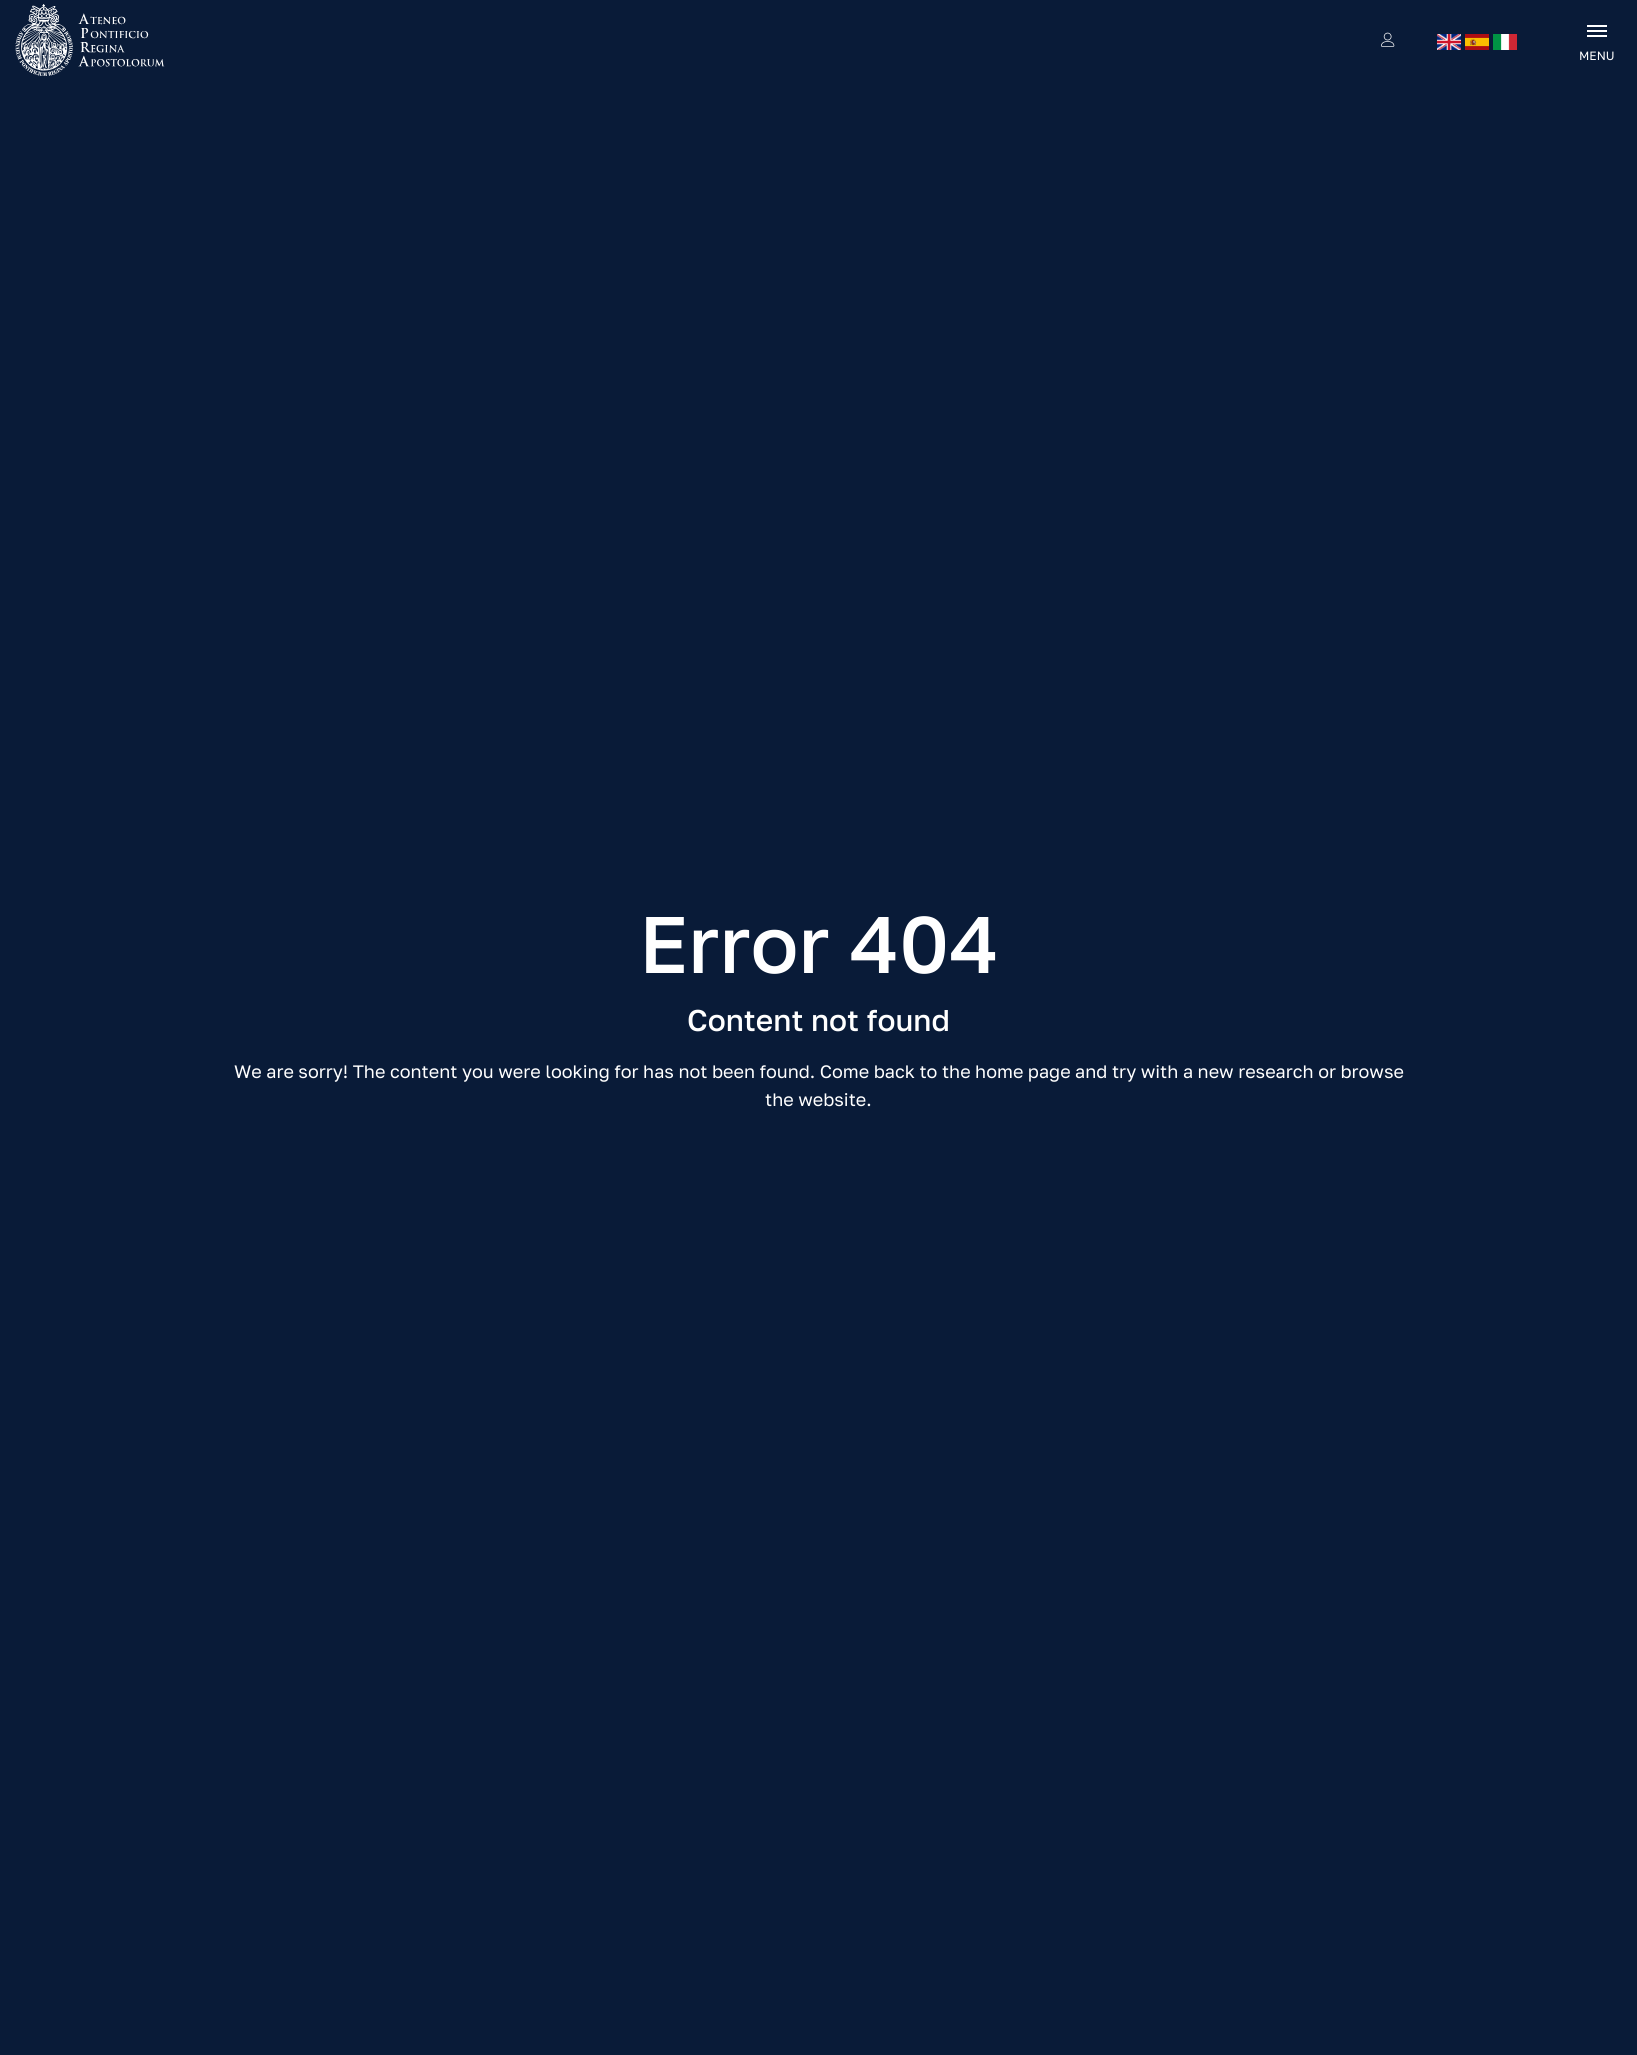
#include <cairo.h>
#include <math.h>
#include <stddef.h>


static void picture(cairo_t *cr, const char *path, double x, double y, double w, double h) {
    cairo_surface_t *image = cairo_image_surface_create_from_png(path);
    cairo_save(cr);
    cairo_set_source_surface(cr, image, x, y);
    cairo_rectangle(cr, x, y, w, h);
    cairo_fill(cr);
    cairo_restore(cr);
    cairo_surface_destroy(image);
}

int main(void) {
    cairo_surface_t *surface = cairo_image_surface_create(CAIRO_FORMAT_RGB24, 1637, 2055);
    cairo_t *cr = cairo_create(surface);
    cairo_font_options_t *options = cairo_font_options_create();
    cairo_font_options_set_hint_metrics(options, CAIRO_HINT_METRICS_OFF);
    cairo_font_options_set_hint_style(options, CAIRO_HINT_STYLE_NONE);
    cairo_set_font_options(cr, options);
    cairo_set_miter_limit(cr, 4);
    cairo_set_source_rgb(cr, 0.039, 0.106, 0.22);
    cairo_paint(cr);
    picture(cr, "img1.png", 15, 4, 150, 72);
    picture(cr, "img2.png", 1381, 32, 14, 15);
    picture(cr, "img3.png", 1437, 34, 24, 16);
    picture(cr, "img4.png", 1465, 34, 24, 16);
    picture(cr, "img5.png", 1493, 34, 24, 16);
    cairo_set_source_rgb(cr, 1, 1, 1);
    cairo_rectangle(cr, 1587, 25, 20, 2);
    cairo_fill(cr);
    cairo_rectangle(cr, 1587, 30, 20, 2);
    cairo_fill(cr);
    cairo_rectangle(cr, 1587, 35, 20, 2);
    cairo_fill(cr);
    cairo_select_font_face(cr, "Golos Text", CAIRO_FONT_SLANT_NORMAL, CAIRO_FONT_WEIGHT_NORMAL);
    cairo_set_font_size(cr, 12);
    cairo_move_to(cr, 1579, 60);
    cairo_show_text(cr, "MENU");
    cairo_select_font_face(cr, "Golos Text Medium", CAIRO_FONT_SLANT_NORMAL, CAIRO_FONT_WEIGHT_NORMAL);
    cairo_set_font_size(cr, 80);
    cairo_move_to(cr, 639, 973);
    cairo_show_text(cr, "Error 404");
    cairo_set_font_size(cr, 30);
    cairo_move_to(cr, 687, 1031);
    cairo_show_text(cr, "Content not found");
    cairo_select_font_face(cr, "Golos Text", CAIRO_FONT_SLANT_NORMAL, CAIRO_FONT_WEIGHT_NORMAL);
    cairo_set_font_size(cr, 18);
    cairo_move_to(cr, 234, 1078);
    cairo_show_text(cr, "We are sorry! The content you were looking for has not been found. Come back to the home page and try with a new research or browse");
    cairo_move_to(cr, 765, 1106);
    cairo_show_text(cr, "the website.");
    cairo_surface_write_to_png(surface, "page.png");
    cairo_font_options_destroy(options);
    cairo_destroy(cr);
    cairo_surface_destroy(surface);
    return 0;
}
